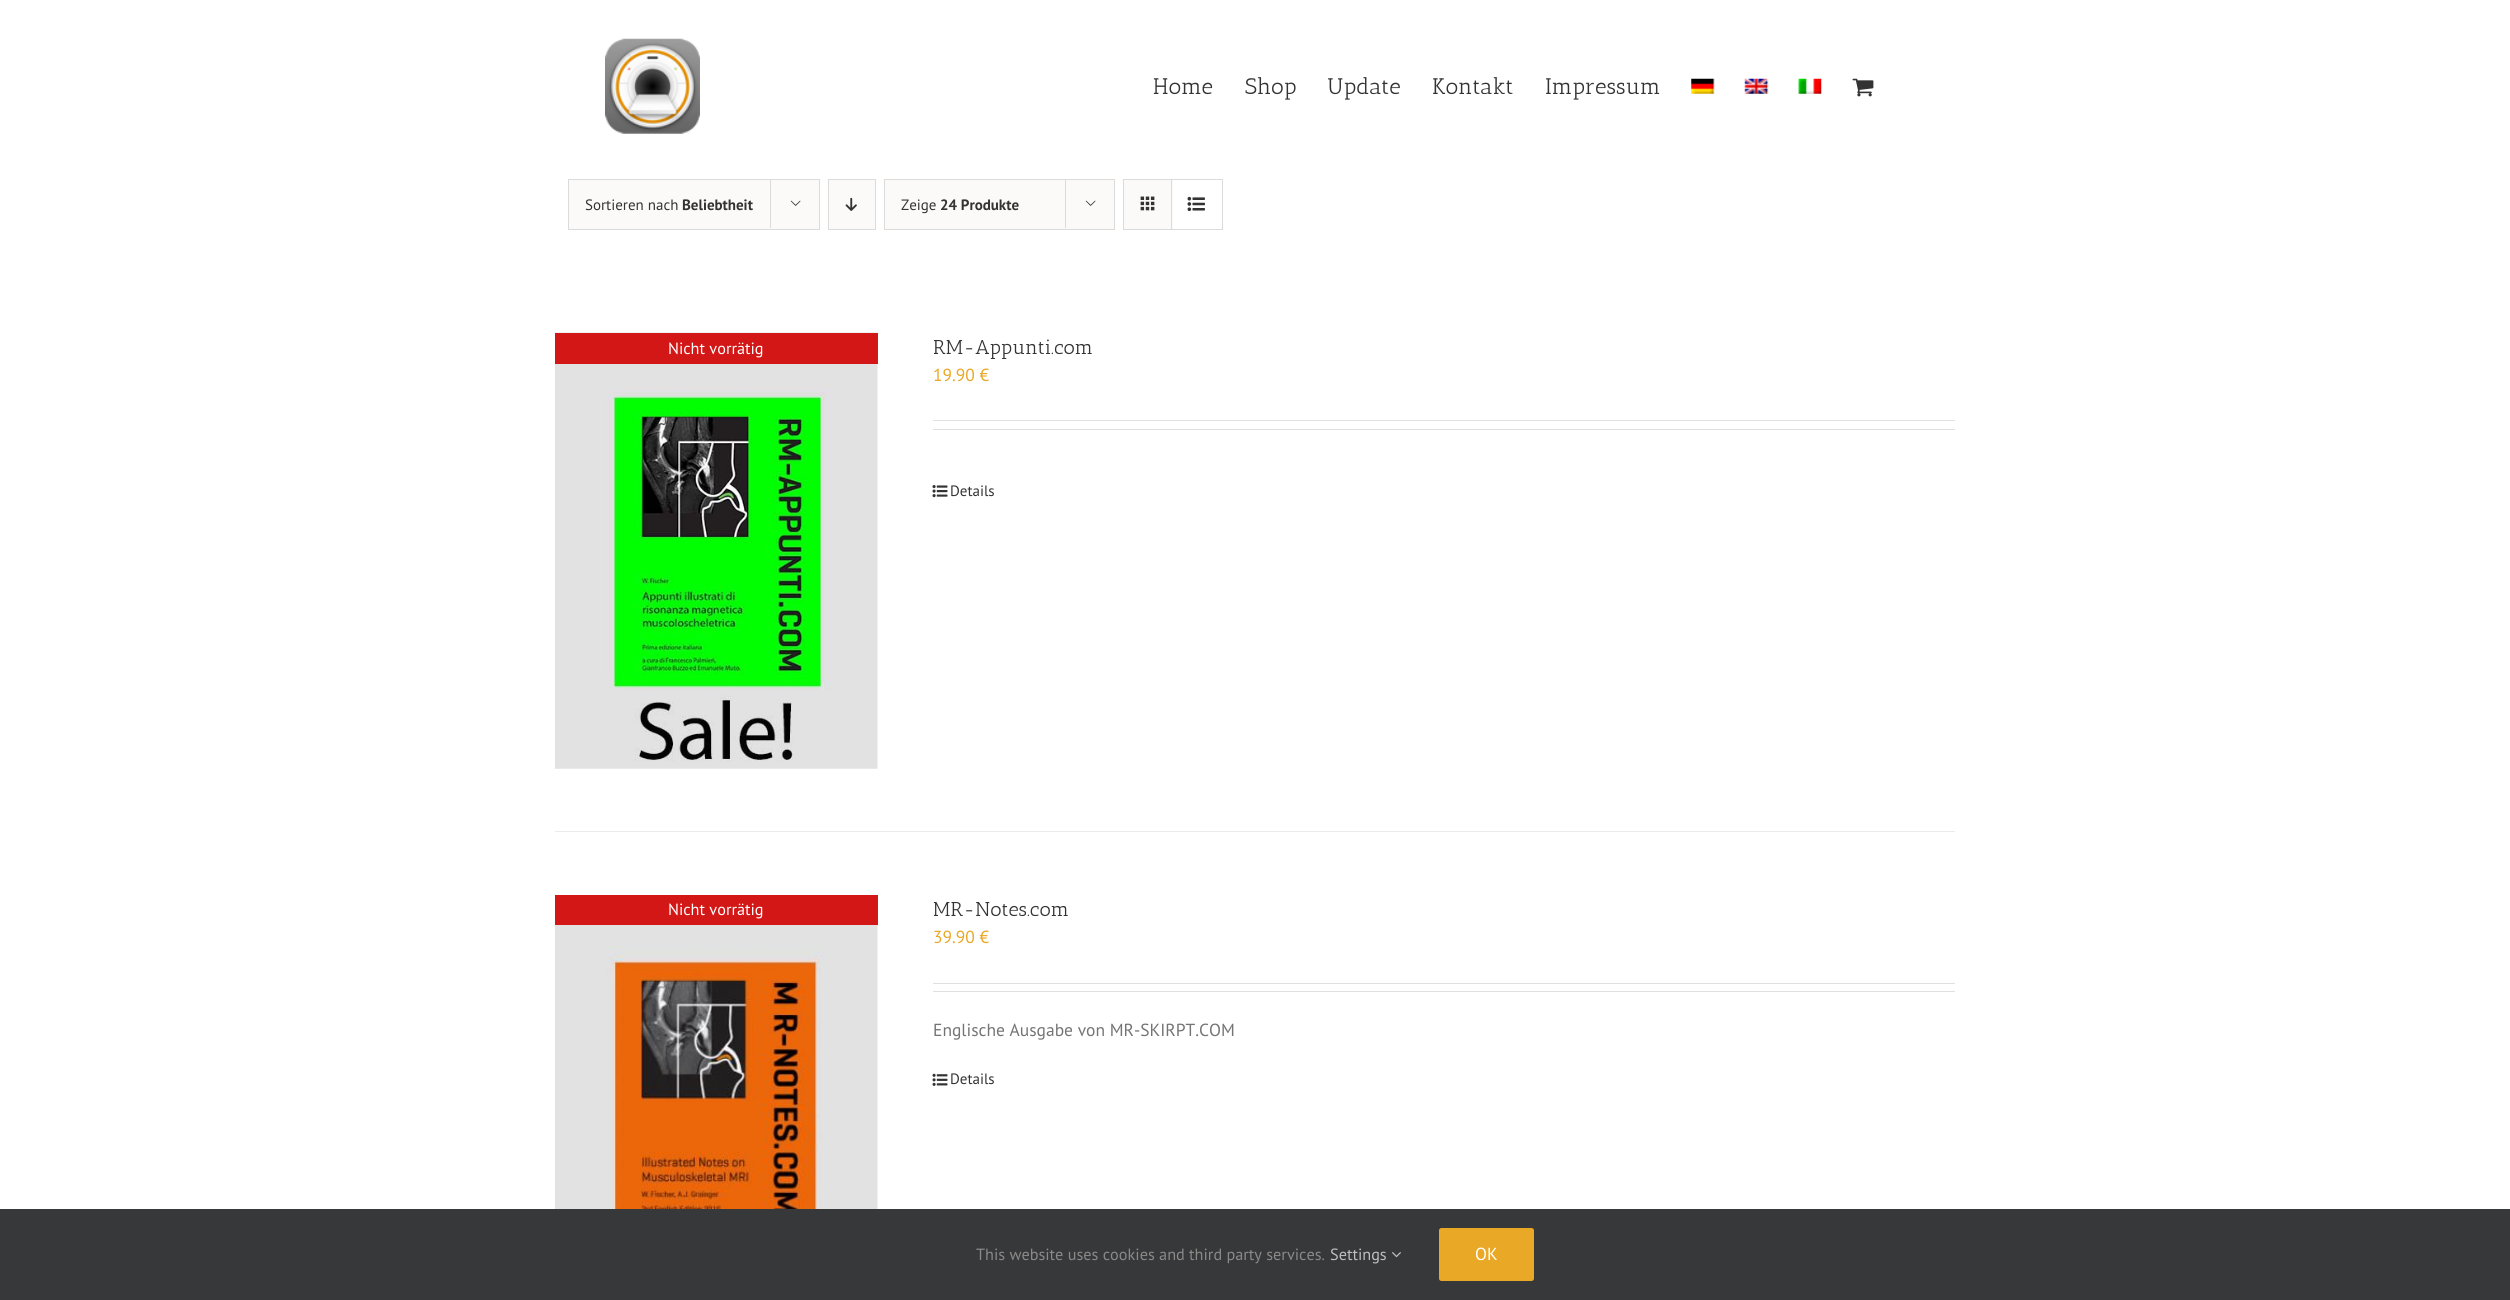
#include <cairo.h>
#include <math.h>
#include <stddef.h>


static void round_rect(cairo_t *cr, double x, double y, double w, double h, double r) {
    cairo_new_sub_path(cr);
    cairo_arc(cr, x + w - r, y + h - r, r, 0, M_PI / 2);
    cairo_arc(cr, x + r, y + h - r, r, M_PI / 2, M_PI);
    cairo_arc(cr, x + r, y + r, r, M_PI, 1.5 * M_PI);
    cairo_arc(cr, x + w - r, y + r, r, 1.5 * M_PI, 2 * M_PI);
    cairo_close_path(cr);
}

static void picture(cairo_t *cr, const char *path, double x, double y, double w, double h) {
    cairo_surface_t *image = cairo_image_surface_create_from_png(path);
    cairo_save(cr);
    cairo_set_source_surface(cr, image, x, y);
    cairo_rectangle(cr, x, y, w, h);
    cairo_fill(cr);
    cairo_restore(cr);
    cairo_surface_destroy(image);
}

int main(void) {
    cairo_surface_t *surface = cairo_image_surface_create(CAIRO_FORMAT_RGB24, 2510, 1300);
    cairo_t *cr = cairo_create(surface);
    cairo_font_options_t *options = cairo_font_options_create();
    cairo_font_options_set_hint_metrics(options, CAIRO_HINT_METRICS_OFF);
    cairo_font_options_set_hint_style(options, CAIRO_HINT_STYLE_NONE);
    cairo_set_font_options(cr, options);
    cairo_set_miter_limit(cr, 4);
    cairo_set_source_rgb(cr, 1, 1, 1);
    cairo_paint(cr);
    picture(cr, "img1.png", 605, 38, 95, 96);
    cairo_select_font_face(cr, "Antic Slab", CAIRO_FONT_SLANT_NORMAL, CAIRO_FONT_WEIGHT_NORMAL);
    cairo_set_font_size(cr, 22.5);
    cairo_set_source_rgb(cr, 0.2, 0.2, 0.2);
    cairo_move_to(cr, 1153, 94);
    cairo_show_text(cr, "Home");
    cairo_move_to(cr, 1245, 94);
    cairo_show_text(cr, "Shop");
    cairo_move_to(cr, 1327, 94);
    cairo_show_text(cr, "Update");
    cairo_move_to(cr, 1432, 94);
    cairo_show_text(cr, "Kontakt");
    cairo_move_to(cr, 1545, 94);
    cairo_show_text(cr, "Impressum");
    picture(cr, "img2.png", 1691, 78, 24, 16);
    picture(cr, "img3.png", 1744, 78, 25, 16);
    picture(cr, "img4.png", 1798, 78, 24, 16);
    picture(cr, "img5.png", 1852, 78, 22, 19);
    cairo_set_source_rgb(cr, 0.984, 0.98, 0.976);
    cairo_rectangle(cr, 568.5, 179.5, 251, 50);
    cairo_fill_preserve(cr);
    cairo_set_source_rgb(cr, 0.859, 0.859, 0.859);
    cairo_set_line_width(cr, 1);
    cairo_stroke(cr);
    cairo_select_font_face(cr, "PT Sans", CAIRO_FONT_SLANT_NORMAL, CAIRO_FONT_WEIGHT_NORMAL);
    cairo_set_font_size(cr, 15);
    cairo_set_source_rgb(cr, 0.2, 0.2, 0.2);
    cairo_move_to(cr, 585, 210);
    cairo_show_text(cr, "Sortieren nach");
    cairo_select_font_face(cr, "PT Sans", CAIRO_FONT_SLANT_NORMAL, CAIRO_FONT_WEIGHT_BOLD);
    cairo_move_to(cr, 682, 210);
    cairo_show_text(cr, "Beliebtheit");
    cairo_set_source_rgb(cr, 0.859, 0.859, 0.859);
    cairo_rectangle(cr, 770, 179, 1, 49);
    cairo_fill(cr);
    picture(cr, "img6.png", 790, 200, 11, 6);
    cairo_set_source_rgb(cr, 0.984, 0.98, 0.976);
    cairo_rectangle(cr, 828.5, 179.5, 47, 50);
    cairo_fill_preserve(cr);
    cairo_set_source_rgb(cr, 0.859, 0.859, 0.859);
    cairo_stroke(cr);
    picture(cr, "img7.png", 845, 197, 12, 14);
    cairo_set_source_rgb(cr, 0.984, 0.98, 0.976);
    cairo_rectangle(cr, 884.5, 179.5, 230, 50);
    cairo_fill_preserve(cr);
    cairo_set_source_rgb(cr, 0.859, 0.859, 0.859);
    cairo_stroke(cr);
    cairo_select_font_face(cr, "PT Sans", CAIRO_FONT_SLANT_NORMAL, CAIRO_FONT_WEIGHT_NORMAL);
    cairo_set_source_rgb(cr, 0.2, 0.2, 0.2);
    cairo_move_to(cr, 901, 210);
    cairo_show_text(cr, "Zeige");
    cairo_select_font_face(cr, "PT Sans", CAIRO_FONT_SLANT_NORMAL, CAIRO_FONT_WEIGHT_BOLD);
    cairo_move_to(cr, 940, 210);
    cairo_show_text(cr, "24 Produkte");
    cairo_set_source_rgb(cr, 0.859, 0.859, 0.859);
    cairo_rectangle(cr, 1065, 179, 1, 49);
    cairo_fill(cr);
    picture(cr, "img6.png", 1085, 200, 11, 6);
    cairo_rectangle(cr, 1123.5, 179.5, 99, 50);
    cairo_stroke(cr);
    cairo_set_source_rgb(cr, 0.984, 0.98, 0.976);
    cairo_rectangle(cr, 1124, 180, 49, 49);
    cairo_fill(cr);
    cairo_set_source_rgb(cr, 0.859, 0.859, 0.859);
    cairo_rectangle(cr, 1171, 180, 1, 49);
    cairo_fill(cr);
    picture(cr, "img8.png", 1140, 196, 15, 15);
    picture(cr, "img9.png", 1187, 196, 18, 16);
    cairo_set_source_rgb(cr, 0.922, 0.918, 0.918);
    cairo_rectangle(cr, 555, 831, 1400, 1);
    cairo_fill(cr);
    picture(cr, "img10.png", 555, 332, 323, 437);
    cairo_set_source_rgba(cr, 0.824, 0, 0, 0.9);
    cairo_rectangle(cr, 555, 333, 323, 31);
    cairo_fill(cr);
    cairo_select_font_face(cr, "PT Sans", CAIRO_FONT_SLANT_NORMAL, CAIRO_FONT_WEIGHT_NORMAL);
    cairo_set_font_size(cr, 16.25);
    cairo_set_source_rgb(cr, 1, 1, 1);
    cairo_move_to(cr, 668, 354);
    cairo_show_text(cr, "Nicht vorrätig");
    cairo_select_font_face(cr, "Antic Slab", CAIRO_FONT_SLANT_NORMAL, CAIRO_FONT_WEIGHT_NORMAL);
    cairo_set_font_size(cr, 20);
    cairo_set_source_rgb(cr, 0.2, 0.2, 0.2);
    cairo_move_to(cr, 933, 354);
    cairo_show_text(cr, "RM-Appunti.com");
    cairo_select_font_face(cr, "PT Sans", CAIRO_FONT_SLANT_NORMAL, CAIRO_FONT_WEIGHT_NORMAL);
    cairo_set_font_size(cr, 17.5);
    cairo_set_source_rgb(cr, 0.914, 0.659, 0.145);
    cairo_move_to(cr, 933, 381);
    cairo_show_text(cr, "19.90 €");
    cairo_set_source_rgb(cr, 0.878, 0.871, 0.871);
    cairo_rectangle(cr, 933, 420, 1022, 1);
    cairo_fill(cr);
    cairo_rectangle(cr, 933, 429, 1022, 1);
    cairo_fill(cr);
    picture(cr, "img11.png", 932, 485, 16, 13);
    cairo_set_font_size(cr, 15);
    cairo_set_source_rgb(cr, 0.2, 0.2, 0.2);
    cairo_move_to(cr, 950, 496);
    cairo_show_text(cr, "Details");
    picture(cr, "img12.png", 555, 895, 323, 314);
    cairo_set_source_rgba(cr, 0.824, 0, 0, 0.9);
    cairo_rectangle(cr, 555, 895, 323, 30);
    cairo_fill(cr);
    cairo_set_font_size(cr, 16.25);
    cairo_set_source_rgb(cr, 1, 1, 1);
    cairo_move_to(cr, 668, 915);
    cairo_show_text(cr, "Nicht vorrätig");
    cairo_select_font_face(cr, "Antic Slab", CAIRO_FONT_SLANT_NORMAL, CAIRO_FONT_WEIGHT_NORMAL);
    cairo_set_font_size(cr, 20);
    cairo_set_source_rgb(cr, 0.2, 0.2, 0.2);
    cairo_move_to(cr, 933, 916);
    cairo_show_text(cr, "MR-Notes.com");
    cairo_select_font_face(cr, "PT Sans", CAIRO_FONT_SLANT_NORMAL, CAIRO_FONT_WEIGHT_NORMAL);
    cairo_set_font_size(cr, 17.5);
    cairo_set_source_rgb(cr, 0.914, 0.659, 0.145);
    cairo_move_to(cr, 933, 943);
    cairo_show_text(cr, "39.90 €");
    cairo_set_source_rgb(cr, 0.878, 0.871, 0.871);
    cairo_rectangle(cr, 933, 983, 1022, 1);
    cairo_fill(cr);
    cairo_rectangle(cr, 933, 991, 1022, 1);
    cairo_fill(cr);
    cairo_set_source_rgb(cr, 0.455, 0.455, 0.455);
    cairo_move_to(cr, 933, 1036);
    cairo_show_text(cr, "Englische Ausgabe von MR-SKIRPT.COM");
    picture(cr, "img13.png", 932, 1073, 16, 13);
    cairo_set_font_size(cr, 15);
    cairo_set_source_rgb(cr, 0.2, 0.2, 0.2);
    cairo_move_to(cr, 950, 1084);
    cairo_show_text(cr, "Details");
    cairo_set_source_rgb(cr, 0.212, 0.22, 0.224);
    cairo_rectangle(cr, 0, 1209, 2510, 91);
    cairo_fill(cr);
    cairo_set_font_size(cr, 16.25);
    cairo_set_source_rgb(cr, 0.549, 0.537, 0.537);
    cairo_move_to(cr, 976, 1260);
    cairo_show_text(cr, "This website uses cookies and third party services.");
    cairo_set_source_rgb(cr, 0.749, 0.749, 0.749);
    cairo_move_to(cr, 1330, 1260);
    cairo_show_text(cr, "Settings");
    picture(cr, "img14.png", 1392, 1252, 9, 6);
    cairo_set_source_rgb(cr, 0.914, 0.659, 0.145);
    round_rect(cr, 1439, 1228, 95, 53, 2.5);
    cairo_fill(cr);
    cairo_set_font_size(cr, 17.5);
    cairo_set_source_rgb(cr, 1, 1, 1);
    cairo_move_to(cr, 1475, 1260);
    cairo_show_text(cr, "OK");
    cairo_surface_write_to_png(surface, "page.png");
    cairo_font_options_destroy(options);
    cairo_destroy(cr);
    cairo_surface_destroy(surface);
    return 0;
}
